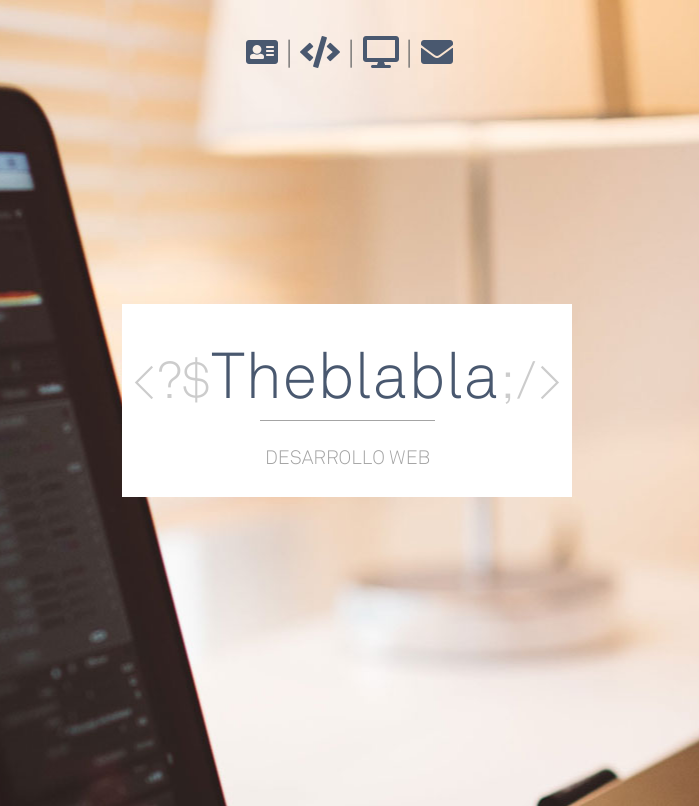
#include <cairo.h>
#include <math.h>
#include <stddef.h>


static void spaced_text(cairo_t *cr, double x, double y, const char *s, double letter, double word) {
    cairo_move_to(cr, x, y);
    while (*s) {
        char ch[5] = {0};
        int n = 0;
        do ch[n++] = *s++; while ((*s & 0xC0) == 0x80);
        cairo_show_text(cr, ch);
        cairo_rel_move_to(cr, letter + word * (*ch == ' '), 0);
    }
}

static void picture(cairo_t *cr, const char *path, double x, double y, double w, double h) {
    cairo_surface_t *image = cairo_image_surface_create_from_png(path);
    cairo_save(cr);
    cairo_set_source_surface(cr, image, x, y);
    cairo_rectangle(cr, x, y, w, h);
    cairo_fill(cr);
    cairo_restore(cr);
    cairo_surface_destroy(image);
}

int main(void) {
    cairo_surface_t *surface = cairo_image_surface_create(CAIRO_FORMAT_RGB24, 699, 806);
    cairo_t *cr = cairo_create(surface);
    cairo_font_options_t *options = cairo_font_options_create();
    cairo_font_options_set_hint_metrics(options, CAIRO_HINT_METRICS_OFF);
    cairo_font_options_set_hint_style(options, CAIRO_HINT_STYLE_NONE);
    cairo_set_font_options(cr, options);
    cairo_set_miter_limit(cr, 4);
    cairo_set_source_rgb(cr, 1, 1, 1);
    cairo_paint(cr);
    picture(cr, "img1.png", 0, 0, 699, 806);
    picture(cr, "img2.png", 246, 40, 32, 24);
    cairo_select_font_face(cr, "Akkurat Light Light", CAIRO_FONT_SLANT_NORMAL, CAIRO_FONT_WEIGHT_NORMAL);
    cairo_set_font_size(cr, 32);
    cairo_set_source_rgb(cr, 0.424, 0.424, 0.424);
    cairo_move_to(cr, 285, 64);
    cairo_show_text(cr, "|");
    picture(cr, "img3.png", 300, 36, 40, 32);
    cairo_move_to(cr, 347, 64);
    cairo_show_text(cr, "|");
    picture(cr, "img4.png", 363, 36, 36, 32);
    cairo_move_to(cr, 405, 64);
    cairo_show_text(cr, "|");
    picture(cr, "img5.png", 421, 40, 32, 24);
    cairo_set_source_rgb(cr, 1, 1, 1);
    cairo_rectangle(cr, 122, 304, 450, 193);
    cairo_fill(cr);
    cairo_set_font_size(cr, 51);
    cairo_set_source_rgb(cr, 0.8, 0.8, 0.8);
    cairo_move_to(cr, 132, 398);
    cairo_show_text(cr, "<?$");
    cairo_set_font_size(cr, 64);
    cairo_set_source_rgb(cr, 0.286, 0.345, 0.435);
    cairo_move_to(cr, 211, 398);
    cairo_show_text(cr, "Theblabla");
    cairo_set_font_size(cr, 51);
    cairo_set_source_rgb(cr, 0.8, 0.8, 0.8);
    spaced_text(cr, 500, 398, ";/>", 1, 0);
    cairo_set_source_rgb(cr, 0.643, 0.643, 0.643);
    cairo_rectangle(cr, 260, 420, 175, 1);
    cairo_fill(cr);
    cairo_set_font_size(cr, 19.25);
    cairo_move_to(cr, 265, 464);
    cairo_show_text(cr, "DESARROLLO WEB");
    cairo_surface_write_to_png(surface, "page.png");
    cairo_font_options_destroy(options);
    cairo_destroy(cr);
    cairo_surface_destroy(surface);
    return 0;
}
